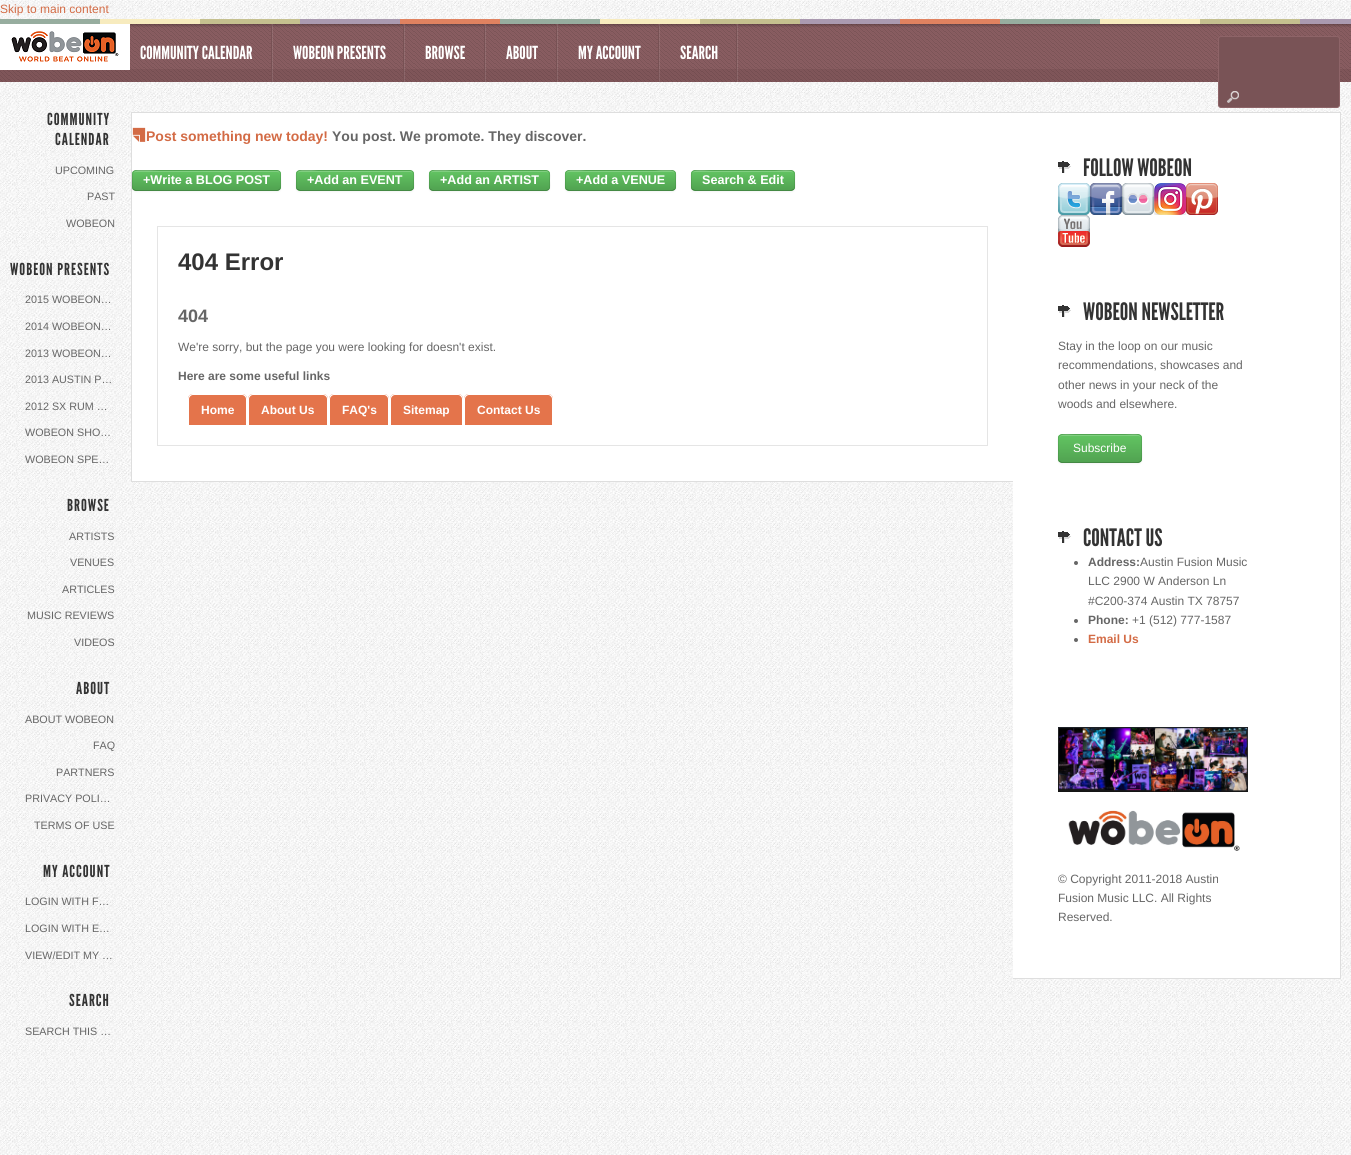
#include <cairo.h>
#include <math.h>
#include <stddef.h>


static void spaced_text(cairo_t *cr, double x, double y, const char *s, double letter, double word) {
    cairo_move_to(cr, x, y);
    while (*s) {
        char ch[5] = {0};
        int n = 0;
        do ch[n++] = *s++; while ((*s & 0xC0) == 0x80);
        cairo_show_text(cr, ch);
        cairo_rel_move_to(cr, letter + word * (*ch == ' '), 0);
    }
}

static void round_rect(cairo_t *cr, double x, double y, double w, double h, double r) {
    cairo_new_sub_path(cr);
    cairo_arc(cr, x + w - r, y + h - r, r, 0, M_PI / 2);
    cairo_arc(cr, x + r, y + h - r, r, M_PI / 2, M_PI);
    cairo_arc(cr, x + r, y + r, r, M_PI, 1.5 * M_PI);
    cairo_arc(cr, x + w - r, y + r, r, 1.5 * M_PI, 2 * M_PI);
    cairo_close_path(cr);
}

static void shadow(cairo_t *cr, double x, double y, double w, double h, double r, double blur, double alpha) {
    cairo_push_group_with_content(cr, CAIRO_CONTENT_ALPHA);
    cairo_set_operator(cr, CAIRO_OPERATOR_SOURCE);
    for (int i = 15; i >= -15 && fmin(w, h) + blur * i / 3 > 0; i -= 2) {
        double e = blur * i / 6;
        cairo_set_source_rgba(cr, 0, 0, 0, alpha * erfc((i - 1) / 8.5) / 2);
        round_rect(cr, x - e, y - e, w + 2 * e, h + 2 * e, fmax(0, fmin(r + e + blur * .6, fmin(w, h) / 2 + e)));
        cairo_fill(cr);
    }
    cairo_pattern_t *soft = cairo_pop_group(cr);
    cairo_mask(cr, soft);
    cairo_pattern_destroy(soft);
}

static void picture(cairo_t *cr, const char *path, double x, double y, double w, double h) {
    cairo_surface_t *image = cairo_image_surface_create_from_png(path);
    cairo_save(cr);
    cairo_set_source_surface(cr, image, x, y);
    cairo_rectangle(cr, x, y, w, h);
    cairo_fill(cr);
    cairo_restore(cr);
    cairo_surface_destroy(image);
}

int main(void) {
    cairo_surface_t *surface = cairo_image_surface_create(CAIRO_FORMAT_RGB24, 1351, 1155);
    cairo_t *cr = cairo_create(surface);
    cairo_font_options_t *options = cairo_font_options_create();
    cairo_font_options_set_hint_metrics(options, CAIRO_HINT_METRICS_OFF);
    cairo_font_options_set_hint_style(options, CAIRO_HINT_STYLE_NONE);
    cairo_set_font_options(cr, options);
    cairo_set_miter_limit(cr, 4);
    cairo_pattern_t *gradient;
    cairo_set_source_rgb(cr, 1, 1, 1);
    cairo_paint(cr);
    picture(cr, "img1.png", 0, 0, 1351, 1155);
    cairo_select_font_face(cr, "Liberation Sans", CAIRO_FONT_SLANT_NORMAL, CAIRO_FONT_WEIGHT_NORMAL);
    cairo_set_font_size(cr, 12);
    cairo_set_source_rgb(cr, 0.827, 0.42, 0.271);
    cairo_move_to(cr, 0, 13);
    cairo_show_text(cr, "Skip to main content");
    picture(cr, "img2.png", 0, 24, 1351, 58);
    picture(cr, "img3.png", 0, 19, 1351, 8);
    picture(cr, "img4.png", 0, 24, 130, 46);
    picture(cr, "img5.png", 271, 24, 2, 58);
    cairo_select_font_face(cr, "League Gothic", CAIRO_FONT_SLANT_NORMAL, CAIRO_FONT_WEIGHT_NORMAL);
    cairo_set_font_size(cr, 18);
    cairo_set_source_rgb(cr, 1, 1, 1);
    cairo_move_to(cr, 140, 59);
    cairo_show_text(cr, "COMMUNITY CALENDAR");
    picture(cr, "img6.png", 403, 24, 2, 58);
    cairo_move_to(cr, 293, 59);
    cairo_show_text(cr, "WOBEON PRESENTS");
    picture(cr, "img6.png", 484, 24, 2, 58);
    cairo_move_to(cr, 425, 59);
    cairo_show_text(cr, "BROWSE");
    picture(cr, "img6.png", 556, 24, 2, 58);
    cairo_move_to(cr, 506, 59);
    cairo_show_text(cr, "ABOUT");
    picture(cr, "img5.png", 658, 24, 2, 58);
    cairo_move_to(cr, 578, 59);
    cairo_show_text(cr, "MY ACCOUNT");
    picture(cr, "img6.png", 736, 24, 2, 58);
    cairo_move_to(cr, 680, 59);
    cairo_show_text(cr, "SEARCH");
    cairo_set_source_rgb(cr, 0.475, 0.325, 0.337);
    round_rect(cr, 1218.5, 36.5, 121, 71, 2.5);
    cairo_fill_preserve(cr);
    cairo_set_source_rgb(cr, 0.557, 0.392, 0.408);
    cairo_set_line_width(cr, 1);
    cairo_stroke(cr);
    picture(cr, "img7.png", 1227, 91, 12, 12);
    cairo_set_font_size(cr, 16.5);
    cairo_set_source_rgb(cr, 0.2, 0.2, 0.2);
    spaced_text(cr, 47, 125, "COMMUNITY", 1, 0);
    spaced_text(cr, 55, 145, "CALENDAR", 1, 0);
    cairo_select_font_face(cr, "Liberation Sans", CAIRO_FONT_SLANT_NORMAL, CAIRO_FONT_WEIGHT_NORMAL);
    cairo_set_font_size(cr, 10.75);
    cairo_set_source_rgb(cr, 0.4, 0.4, 0.4);
    cairo_move_to(cr, 55, 174);
    cairo_show_text(cr, "UPCOMING");
    cairo_move_to(cr, 87, 200);
    cairo_show_text(cr, "PAST");
    cairo_move_to(cr, 66, 227);
    cairo_show_text(cr, "WOBEON");
    cairo_select_font_face(cr, "League Gothic", CAIRO_FONT_SLANT_NORMAL, CAIRO_FONT_WEIGHT_NORMAL);
    cairo_set_font_size(cr, 16.5);
    cairo_set_source_rgb(cr, 0.2, 0.2, 0.2);
    spaced_text(cr, 10, 275, "WOBEON PRESENTS", 1, 0);
    cairo_select_font_face(cr, "Liberation Sans", CAIRO_FONT_SLANT_NORMAL, CAIRO_FONT_WEIGHT_NORMAL);
    cairo_set_font_size(cr, 10.75);
    cairo_set_source_rgb(cr, 0.4, 0.4, 0.4);
    cairo_move_to(cr, 25, 303);
    cairo_show_text(cr, "2015 WOBEON…");
    cairo_move_to(cr, 25, 330);
    cairo_show_text(cr, "2014 WOBEON…");
    cairo_move_to(cr, 25, 357);
    cairo_show_text(cr, "2013 WOBEON…");
    cairo_move_to(cr, 25, 383);
    cairo_show_text(cr, "2013 AUSTIN P…");
    cairo_move_to(cr, 25, 410);
    cairo_show_text(cr, "2012 SX RUM …");
    cairo_move_to(cr, 25, 436);
    cairo_show_text(cr, "WOBEON SHO…");
    cairo_move_to(cr, 25, 463);
    cairo_show_text(cr, "WOBEON SPE…");
    cairo_select_font_face(cr, "League Gothic", CAIRO_FONT_SLANT_NORMAL, CAIRO_FONT_WEIGHT_NORMAL);
    cairo_set_font_size(cr, 16.5);
    cairo_set_source_rgb(cr, 0.2, 0.2, 0.2);
    spaced_text(cr, 67, 511, "BROWSE", 1, 0);
    cairo_select_font_face(cr, "Liberation Sans", CAIRO_FONT_SLANT_NORMAL, CAIRO_FONT_WEIGHT_NORMAL);
    cairo_set_font_size(cr, 10.75);
    cairo_set_source_rgb(cr, 0.4, 0.4, 0.4);
    cairo_move_to(cr, 69, 540);
    cairo_show_text(cr, "ARTISTS");
    cairo_move_to(cr, 70, 566);
    cairo_show_text(cr, "VENUES");
    cairo_move_to(cr, 62, 593);
    cairo_show_text(cr, "ARTICLES");
    cairo_move_to(cr, 27, 619);
    cairo_show_text(cr, "MUSIC REVIEWS");
    cairo_move_to(cr, 74, 646);
    cairo_show_text(cr, "VIDEOS");
    cairo_select_font_face(cr, "League Gothic", CAIRO_FONT_SLANT_NORMAL, CAIRO_FONT_WEIGHT_NORMAL);
    cairo_set_font_size(cr, 16.5);
    cairo_set_source_rgb(cr, 0.2, 0.2, 0.2);
    spaced_text(cr, 76, 694, "ABOUT", 1, 0);
    cairo_select_font_face(cr, "Liberation Sans", CAIRO_FONT_SLANT_NORMAL, CAIRO_FONT_WEIGHT_NORMAL);
    cairo_set_font_size(cr, 10.75);
    cairo_set_source_rgb(cr, 0.4, 0.4, 0.4);
    cairo_move_to(cr, 25, 723);
    cairo_show_text(cr, "ABOUT WOBEON");
    cairo_move_to(cr, 93, 749);
    cairo_show_text(cr, "FAQ");
    cairo_move_to(cr, 56, 776);
    cairo_show_text(cr, "PARTNERS");
    cairo_move_to(cr, 25, 802);
    cairo_show_text(cr, "PRIVACY POLI…");
    cairo_move_to(cr, 34, 829);
    cairo_show_text(cr, "TERMS OF USE");
    cairo_select_font_face(cr, "League Gothic", CAIRO_FONT_SLANT_NORMAL, CAIRO_FONT_WEIGHT_NORMAL);
    cairo_set_font_size(cr, 16.5);
    cairo_set_source_rgb(cr, 0.2, 0.2, 0.2);
    spaced_text(cr, 43, 877, "MY ACCOUNT", 1, 0);
    cairo_select_font_face(cr, "Liberation Sans", CAIRO_FONT_SLANT_NORMAL, CAIRO_FONT_WEIGHT_NORMAL);
    cairo_set_font_size(cr, 10.75);
    cairo_set_source_rgb(cr, 0.4, 0.4, 0.4);
    cairo_move_to(cr, 25, 905);
    cairo_show_text(cr, "LOGIN WITH F…");
    cairo_move_to(cr, 25, 932);
    cairo_show_text(cr, "LOGIN WITH E…");
    cairo_move_to(cr, 25, 959);
    cairo_show_text(cr, "VIEW/EDIT MY …");
    cairo_select_font_face(cr, "League Gothic", CAIRO_FONT_SLANT_NORMAL, CAIRO_FONT_WEIGHT_NORMAL);
    cairo_set_font_size(cr, 16.5);
    cairo_set_source_rgb(cr, 0.2, 0.2, 0.2);
    spaced_text(cr, 69, 1006, "SEARCH", 1, 0);
    cairo_select_font_face(cr, "Liberation Sans", CAIRO_FONT_SLANT_NORMAL, CAIRO_FONT_WEIGHT_NORMAL);
    cairo_set_font_size(cr, 10.75);
    cairo_set_source_rgb(cr, 0.4, 0.4, 0.4);
    cairo_move_to(cr, 25, 1035);
    cairo_show_text(cr, "SEARCH THIS …");
    cairo_set_source_rgb(cr, 1, 1, 1);
    cairo_rectangle(cr, 132, 113, 881, 368);
    cairo_fill(cr);
    cairo_set_source_rgb(cr, 0.871, 0.871, 0.871);
    cairo_rectangle(cr, 131, 112, 1210, 1);
    cairo_fill(cr);
    cairo_rectangle(cr, 131, 481, 882, 1);
    cairo_fill(cr);
    cairo_rectangle(cr, 131, 112, 1, 370);
    cairo_fill(cr);
    picture(cr, "img8.png", 132, 127, 14, 15);
    cairo_select_font_face(cr, "Liberation Sans", CAIRO_FONT_SLANT_NORMAL, CAIRO_FONT_WEIGHT_BOLD);
    cairo_set_font_size(cr, 14);
    cairo_set_source_rgb(cr, 0.827, 0.42, 0.271);
    cairo_move_to(cr, 146, 141);
    cairo_show_text(cr, "Post something new today!");
    cairo_set_source_rgb(cr, 0.4, 0.4, 0.4);
    cairo_move_to(cr, 332, 141);
    cairo_show_text(cr, "You post. We promote. They discover.");
    cairo_set_source_rgb(cr, 0, 0, 0);
    shadow(cr, 132, 171, 149, 21, 4, 1, 0.05);
    cairo_set_source_rgb(cr, 0.357, 0.718, 0.357);
    round_rect(cr, 132, 170, 149, 21, 4);
    cairo_fill(cr);
    cairo_save(cr);
    round_rect(cr, 132, 170, 149, 21, 4);
    cairo_clip(cr);
    gradient = cairo_pattern_create_linear(207, 171, 207, 190);
    cairo_pattern_add_color_stop_rgba(gradient, 0, 0.384, 0.769, 0.384, 1);
    cairo_pattern_add_color_stop_rgba(gradient, 1, 0.318, 0.639, 0.318, 1);
    cairo_set_source(cr, gradient);
    cairo_pattern_destroy(gradient);
    cairo_rectangle(cr, 132, 171, 149, 19);
    cairo_fill(cr);
    cairo_restore(cr);
    cairo_set_source_rgba(cr, 1, 1, 1, 0.2);
    cairo_new_path(cr);
    cairo_move_to(cr, 136, 172);
    cairo_line_to(cr, 277, 172);
    cairo_curve_to(cr, 279, 172, 280, 173, 280, 175);
    cairo_curve_to(cr, 280, 173, 280, 172, 278, 171);
    cairo_line_to(cr, 160, 171);
    cairo_curve_to(cr, 152, 171, 133, 166, 133, 175);
    cairo_curve_to(cr, 133, 173, 134, 172, 136, 172);
    cairo_close_path(cr);
    cairo_fill(cr);
    cairo_new_path(cr);
    cairo_move_to(cr, 279.5, 189.5);
    cairo_curve_to(cr, 279, 190, 278, 190.5, 277, 190.5);
    cairo_line_to(cr, 136, 190.5);
    cairo_curve_to(cr, 135, 190.5, 134, 190, 133.5, 189.5);
    cairo_set_source_rgba(cr, 0, 0, 0, 0.25);
    cairo_stroke(cr);
    cairo_new_path(cr);
    cairo_move_to(cr, 133.5, 189.5);
    cairo_curve_to(cr, 131.5, 187.5, 132.5, 181, 132.5, 178.5);
    cairo_curve_to(cr, 132.5, 175.5, 132, 170.5, 136, 170.5);
    cairo_line_to(cr, 277, 170.5);
    cairo_curve_to(cr, 281, 170.5, 280.5, 175.5, 280.5, 178.5);
    cairo_curve_to(cr, 280.5, 181, 281.5, 187.5, 279.5, 189.5);
    cairo_set_source_rgba(cr, 0, 0, 0, 0.1);
    cairo_stroke(cr);
    cairo_set_font_size(cr, 12.6);
    cairo_set_source_rgb(cr, 1, 1, 1);
    cairo_move_to(cr, 143, 184);
    cairo_show_text(cr, "+Write a BLOG POST");
    cairo_set_source_rgb(cr, 0, 0, 0);
    shadow(cr, 296, 171, 118, 21, 4, 1, 0.05);
    cairo_set_source_rgb(cr, 0.357, 0.718, 0.357);
    round_rect(cr, 296, 170, 118, 21, 4);
    cairo_fill(cr);
    cairo_save(cr);
    round_rect(cr, 296, 170, 118, 21, 4);
    cairo_clip(cr);
    gradient = cairo_pattern_create_linear(355, 171, 355, 190);
    cairo_pattern_add_color_stop_rgba(gradient, 0, 0.384, 0.769, 0.384, 1);
    cairo_pattern_add_color_stop_rgba(gradient, 1, 0.318, 0.639, 0.318, 1);
    cairo_set_source(cr, gradient);
    cairo_pattern_destroy(gradient);
    cairo_rectangle(cr, 296, 171, 118, 19);
    cairo_fill(cr);
    cairo_restore(cr);
    cairo_set_source_rgba(cr, 1, 1, 1, 0.2);
    cairo_new_path(cr);
    cairo_move_to(cr, 300, 172);
    cairo_line_to(cr, 410, 172);
    cairo_curve_to(cr, 412, 172, 413, 173, 413, 175);
    cairo_curve_to(cr, 413, 173, 412, 171, 410, 171);
    cairo_line_to(cr, 318, 171);
    cairo_curve_to(cr, 317, 171, 297, 166, 297, 175);
    cairo_curve_to(cr, 297, 173, 298, 172, 300, 172);
    cairo_close_path(cr);
    cairo_fill(cr);
    cairo_new_path(cr);
    cairo_move_to(cr, 412.5, 189.5);
    cairo_line_to(cr, 410.5, 190.5);
    cairo_line_to(cr, 318.5, 190.5);
    cairo_line_to(cr, 300, 190.5);
    cairo_line_to(cr, 297.5, 189.5);
    cairo_set_source_rgba(cr, 0, 0, 0, 0.25);
    cairo_stroke(cr);
    cairo_new_path(cr);
    cairo_move_to(cr, 297.5, 189.5);
    cairo_curve_to(cr, 295.5, 187.5, 296.5, 183, 296.5, 180.5);
    cairo_curve_to(cr, 296.5, 177.5, 295, 170.5, 300, 170.5);
    cairo_line_to(cr, 410, 170.5);
    cairo_curve_to(cr, 415, 170.5, 413.5, 177.5, 413.5, 180.5);
    cairo_curve_to(cr, 413.5, 183, 414.5, 187.5, 412.5, 189.5);
    cairo_set_source_rgba(cr, 0, 0, 0, 0.1);
    cairo_stroke(cr);
    cairo_set_source_rgb(cr, 1, 1, 1);
    cairo_move_to(cr, 307, 184);
    cairo_show_text(cr, "+Add an EVENT");
    cairo_set_source_rgb(cr, 0, 0, 0);
    shadow(cr, 429, 171, 121, 21, 4, 1, 0.05);
    cairo_set_source_rgb(cr, 0.357, 0.718, 0.357);
    round_rect(cr, 429, 170, 121, 21, 4);
    cairo_fill(cr);
    cairo_save(cr);
    round_rect(cr, 429, 170, 121, 21, 4);
    cairo_clip(cr);
    gradient = cairo_pattern_create_linear(490, 171, 490, 190);
    cairo_pattern_add_color_stop_rgba(gradient, 0, 0.384, 0.769, 0.384, 1);
    cairo_pattern_add_color_stop_rgba(gradient, 1, 0.318, 0.639, 0.318, 1);
    cairo_set_source(cr, gradient);
    cairo_pattern_destroy(gradient);
    cairo_rectangle(cr, 429, 171, 121, 19);
    cairo_fill(cr);
    cairo_restore(cr);
    cairo_set_source_rgba(cr, 1, 1, 1, 0.2);
    cairo_new_path(cr);
    cairo_move_to(cr, 433, 172);
    cairo_line_to(cr, 546, 172);
    cairo_curve_to(cr, 548, 172, 549, 173, 549, 175);
    cairo_curve_to(cr, 549, 173, 548, 171, 546, 171);
    cairo_line_to(cr, 452, 171);
    cairo_curve_to(cr, 451, 171, 430, 166, 430, 175);
    cairo_curve_to(cr, 430, 173, 431, 172, 433, 172);
    cairo_close_path(cr);
    cairo_fill(cr);
    cairo_new_path(cr);
    cairo_move_to(cr, 548.5, 189.5);
    cairo_curve_to(cr, 548, 190, 547, 190.5, 546, 190.5);
    cairo_line_to(cr, 433, 190.5);
    cairo_curve_to(cr, 432, 190.5, 431, 190, 430.5, 189.5);
    cairo_set_source_rgba(cr, 0, 0, 0, 0.25);
    cairo_stroke(cr);
    cairo_new_path(cr);
    cairo_move_to(cr, 430.5, 189.5);
    cairo_curve_to(cr, 428.5, 187.5, 429.5, 183, 429.5, 180.5);
    cairo_curve_to(cr, 429.5, 177.5, 428, 170.5, 433, 170.5);
    cairo_line_to(cr, 546, 170.5);
    cairo_curve_to(cr, 551, 170.5, 549.5, 177.5, 549.5, 180.5);
    cairo_curve_to(cr, 549.5, 183, 550.5, 187.5, 548.5, 189.5);
    cairo_set_source_rgba(cr, 0, 0, 0, 0.1);
    cairo_stroke(cr);
    cairo_set_source_rgb(cr, 1, 1, 1);
    cairo_move_to(cr, 440, 184);
    cairo_show_text(cr, "+Add an ARTIST");
    cairo_set_source_rgb(cr, 0, 0, 0);
    shadow(cr, 565, 171, 111, 21, 4, 1, 0.05);
    cairo_set_source_rgb(cr, 0.357, 0.718, 0.357);
    round_rect(cr, 565, 170, 111, 21, 4);
    cairo_fill(cr);
    cairo_save(cr);
    round_rect(cr, 565, 170, 111, 21, 4);
    cairo_clip(cr);
    gradient = cairo_pattern_create_linear(621, 171, 621, 190);
    cairo_pattern_add_color_stop_rgba(gradient, 0, 0.384, 0.769, 0.384, 1);
    cairo_pattern_add_color_stop_rgba(gradient, 1, 0.318, 0.639, 0.318, 1);
    cairo_set_source(cr, gradient);
    cairo_pattern_destroy(gradient);
    cairo_rectangle(cr, 565, 171, 111, 19);
    cairo_fill(cr);
    cairo_restore(cr);
    cairo_set_source_rgba(cr, 1, 1, 1, 0.2);
    cairo_new_path(cr);
    cairo_move_to(cr, 569, 172);
    cairo_line_to(cr, 672, 172);
    cairo_curve_to(cr, 674, 172, 675, 173, 675, 175);
    cairo_curve_to(cr, 675, 166, 657, 171, 655, 171);
    cairo_line_to(cr, 586, 171);
    cairo_curve_to(cr, 584, 171, 566, 166, 566, 175);
    cairo_curve_to(cr, 566, 173, 567, 172, 569, 172);
    cairo_close_path(cr);
    cairo_fill(cr);
    cairo_new_path(cr);
    cairo_move_to(cr, 674.5, 189.5);
    cairo_line_to(cr, 672.5, 190.5);
    cairo_line_to(cr, 586, 190.5);
    cairo_line_to(cr, 569, 190.5);
    cairo_line_to(cr, 566.5, 189.5);
    cairo_set_source_rgba(cr, 0, 0, 0, 0.25);
    cairo_stroke(cr);
    cairo_new_path(cr);
    cairo_move_to(cr, 566.5, 189.5);
    cairo_curve_to(cr, 564.5, 187.5, 565.5, 183, 565.5, 180.5);
    cairo_curve_to(cr, 565.5, 177.5, 564, 170.5, 569, 170.5);
    cairo_line_to(cr, 672, 170.5);
    cairo_curve_to(cr, 677, 170.5, 675.5, 177.5, 675.5, 180.5);
    cairo_curve_to(cr, 675.5, 183, 676.5, 187.5, 674.5, 189.5);
    cairo_set_source_rgba(cr, 0, 0, 0, 0.1);
    cairo_stroke(cr);
    cairo_set_source_rgb(cr, 1, 1, 1);
    cairo_move_to(cr, 576, 184);
    cairo_show_text(cr, "+Add a VENUE");
    cairo_set_source_rgb(cr, 0, 0, 0);
    shadow(cr, 691, 171, 104, 21, 4, 1, 0.05);
    cairo_set_source_rgb(cr, 0.357, 0.718, 0.357);
    round_rect(cr, 691, 170, 104, 21, 4);
    cairo_fill(cr);
    cairo_save(cr);
    round_rect(cr, 691, 170, 104, 21, 4);
    cairo_clip(cr);
    gradient = cairo_pattern_create_linear(743, 171, 743, 190);
    cairo_pattern_add_color_stop_rgba(gradient, 0, 0.384, 0.769, 0.384, 1);
    cairo_pattern_add_color_stop_rgba(gradient, 1, 0.318, 0.639, 0.318, 1);
    cairo_set_source(cr, gradient);
    cairo_pattern_destroy(gradient);
    cairo_rectangle(cr, 691, 171, 104, 19);
    cairo_fill(cr);
    cairo_restore(cr);
    cairo_set_source_rgba(cr, 1, 1, 1, 0.2);
    cairo_new_path(cr);
    cairo_move_to(cr, 695, 172);
    cairo_line_to(cr, 791, 172);
    cairo_curve_to(cr, 793, 172, 794, 173, 794, 175);
    cairo_curve_to(cr, 794, 167, 778, 171, 775, 171);
    cairo_line_to(cr, 711, 171);
    cairo_curve_to(cr, 708, 171, 692, 167, 692, 175);
    cairo_curve_to(cr, 692, 173, 693, 172, 695, 172);
    cairo_close_path(cr);
    cairo_fill(cr);
    cairo_new_path(cr);
    cairo_move_to(cr, 793.5, 189.5);
    cairo_line_to(cr, 791.5, 190.5);
    cairo_line_to(cr, 711, 190.5);
    cairo_line_to(cr, 695, 190.5);
    cairo_line_to(cr, 692.5, 189.5);
    cairo_set_source_rgba(cr, 0, 0, 0, 0.25);
    cairo_stroke(cr);
    cairo_new_path(cr);
    cairo_move_to(cr, 692.5, 189.5);
    cairo_curve_to(cr, 690.5, 187.5, 691.5, 183, 691.5, 180.5);
    cairo_curve_to(cr, 691.5, 177.5, 690, 170.5, 695, 170.5);
    cairo_line_to(cr, 791, 170.5);
    cairo_curve_to(cr, 796, 170.5, 794.5, 177.5, 794.5, 180.5);
    cairo_curve_to(cr, 794.5, 183, 795.5, 187.5, 793.5, 189.5);
    cairo_set_source_rgba(cr, 0, 0, 0, 0.1);
    cairo_stroke(cr);
    cairo_set_source_rgb(cr, 1, 1, 1);
    cairo_move_to(cr, 702, 184);
    cairo_show_text(cr, "Search & Edit");
    cairo_rectangle(cr, 157.5, 226.5, 830, 219);
    cairo_set_source_rgb(cr, 0.898, 0.898, 0.898);
    cairo_stroke(cr);
    cairo_set_font_size(cr, 24);
    cairo_set_source_rgb(cr, 0.2, 0.2, 0.2);
    cairo_move_to(cr, 178, 270);
    cairo_show_text(cr, "404 Error");
    cairo_set_font_size(cr, 18);
    cairo_set_source_rgb(cr, 0.4, 0.4, 0.4);
    cairo_move_to(cr, 178, 322);
    cairo_show_text(cr, "404");
    cairo_select_font_face(cr, "Liberation Sans", CAIRO_FONT_SLANT_NORMAL, CAIRO_FONT_WEIGHT_NORMAL);
    cairo_set_font_size(cr, 12);
    cairo_move_to(cr, 178, 351);
    cairo_show_text(cr, "We're sorry, but the page you were looking for doesn't exist.");
    cairo_select_font_face(cr, "Liberation Sans", CAIRO_FONT_SLANT_NORMAL, CAIRO_FONT_WEIGHT_BOLD);
    cairo_move_to(cr, 178, 380);
    cairo_show_text(cr, "Here are some useful links");
    cairo_set_source_rgb(cr, 0.894, 0.455, 0.294);
    cairo_new_path(cr);
    cairo_move_to(cr, 193, 394);
    cairo_line_to(cr, 242, 394);
    cairo_curve_to(cr, 245, 394, 247, 396, 247, 399);
    cairo_line_to(cr, 247, 425);
    cairo_line_to(cr, 188, 425);
    cairo_line_to(cr, 188, 399);
    cairo_curve_to(cr, 188, 396, 190, 394, 193, 394);
    cairo_close_path(cr);
    cairo_fill(cr);
    cairo_set_source_rgb(cr, 1, 1, 1);
    cairo_set_fill_rule(cr, CAIRO_FILL_RULE_EVEN_ODD);
    cairo_new_path(cr);
    cairo_move_to(cr, 193, 394);
    cairo_line_to(cr, 242, 394);
    cairo_curve_to(cr, 245, 394, 247, 396, 247, 399);
    cairo_line_to(cr, 247, 425);
    cairo_line_to(cr, 188, 425);
    cairo_line_to(cr, 188, 399);
    cairo_curve_to(cr, 188, 396, 190, 394, 193, 394);
    cairo_close_path(cr);
    cairo_move_to(cr, 193, 395);
    cairo_line_to(cr, 242, 395);
    cairo_curve_to(cr, 244, 395, 246, 397, 246, 399);
    cairo_line_to(cr, 246, 425);
    cairo_line_to(cr, 189, 425);
    cairo_line_to(cr, 189, 399);
    cairo_curve_to(cr, 189, 397, 191, 395, 193, 395);
    cairo_close_path(cr);
    cairo_fill(cr);
    cairo_move_to(cr, 201, 414);
    cairo_show_text(cr, "Home");
    cairo_set_source_rgb(cr, 0.894, 0.455, 0.294);
    cairo_new_path(cr);
    cairo_move_to(cr, 253, 394);
    cairo_line_to(cr, 323, 394);
    cairo_curve_to(cr, 326, 394, 328, 396, 328, 399);
    cairo_line_to(cr, 328, 425);
    cairo_line_to(cr, 248, 425);
    cairo_line_to(cr, 248, 399);
    cairo_curve_to(cr, 248, 396, 250, 394, 253, 394);
    cairo_close_path(cr);
    cairo_fill(cr);
    cairo_set_source_rgb(cr, 1, 1, 1);
    cairo_new_path(cr);
    cairo_move_to(cr, 253, 394);
    cairo_line_to(cr, 323, 394);
    cairo_curve_to(cr, 326, 394, 328, 396, 328, 399);
    cairo_line_to(cr, 328, 425);
    cairo_line_to(cr, 248, 425);
    cairo_line_to(cr, 248, 399);
    cairo_curve_to(cr, 248, 396, 250, 394, 253, 394);
    cairo_close_path(cr);
    cairo_move_to(cr, 253, 395);
    cairo_line_to(cr, 323, 395);
    cairo_curve_to(cr, 325, 395, 327, 397, 327, 399);
    cairo_line_to(cr, 327, 425);
    cairo_line_to(cr, 249, 425);
    cairo_line_to(cr, 249, 399);
    cairo_curve_to(cr, 249, 397, 251, 395, 253, 395);
    cairo_close_path(cr);
    cairo_fill(cr);
    cairo_move_to(cr, 261, 414);
    cairo_show_text(cr, "About Us");
    cairo_set_source_rgb(cr, 0.894, 0.455, 0.294);
    cairo_new_path(cr);
    cairo_move_to(cr, 334, 394);
    cairo_line_to(cr, 384, 394);
    cairo_curve_to(cr, 387, 394, 389, 396, 389, 399);
    cairo_line_to(cr, 389, 425);
    cairo_line_to(cr, 329, 425);
    cairo_line_to(cr, 329, 399);
    cairo_curve_to(cr, 329, 396, 331, 394, 334, 394);
    cairo_close_path(cr);
    cairo_fill(cr);
    cairo_set_source_rgb(cr, 1, 1, 1);
    cairo_new_path(cr);
    cairo_move_to(cr, 334, 394);
    cairo_line_to(cr, 384, 394);
    cairo_curve_to(cr, 387, 394, 389, 396, 389, 399);
    cairo_line_to(cr, 389, 425);
    cairo_line_to(cr, 329, 425);
    cairo_line_to(cr, 329, 399);
    cairo_curve_to(cr, 329, 396, 331, 394, 334, 394);
    cairo_close_path(cr);
    cairo_move_to(cr, 334, 395);
    cairo_line_to(cr, 384, 395);
    cairo_curve_to(cr, 386, 395, 388, 397, 388, 399);
    cairo_line_to(cr, 388, 425);
    cairo_line_to(cr, 330, 425);
    cairo_line_to(cr, 330, 399);
    cairo_curve_to(cr, 330, 397, 332, 395, 334, 395);
    cairo_close_path(cr);
    cairo_fill(cr);
    cairo_move_to(cr, 342, 414);
    cairo_show_text(cr, "FAQ's");
    cairo_set_source_rgb(cr, 0.894, 0.455, 0.294);
    cairo_new_path(cr);
    cairo_move_to(cr, 395, 394);
    cairo_line_to(cr, 458, 394);
    cairo_curve_to(cr, 461, 394, 463, 396, 463, 399);
    cairo_line_to(cr, 463, 425);
    cairo_line_to(cr, 390, 425);
    cairo_line_to(cr, 390, 399);
    cairo_curve_to(cr, 390, 396, 392, 394, 395, 394);
    cairo_close_path(cr);
    cairo_fill(cr);
    cairo_set_source_rgb(cr, 1, 1, 1);
    cairo_new_path(cr);
    cairo_move_to(cr, 395, 394);
    cairo_line_to(cr, 458, 394);
    cairo_curve_to(cr, 461, 394, 463, 396, 463, 399);
    cairo_line_to(cr, 463, 425);
    cairo_line_to(cr, 390, 425);
    cairo_line_to(cr, 390, 399);
    cairo_curve_to(cr, 390, 396, 392, 394, 395, 394);
    cairo_close_path(cr);
    cairo_move_to(cr, 395, 395);
    cairo_line_to(cr, 458, 395);
    cairo_curve_to(cr, 460, 395, 462, 397, 462, 399);
    cairo_line_to(cr, 462, 425);
    cairo_line_to(cr, 391, 425);
    cairo_line_to(cr, 391, 399);
    cairo_curve_to(cr, 391, 397, 393, 395, 395, 395);
    cairo_close_path(cr);
    cairo_fill(cr);
    cairo_move_to(cr, 403, 414);
    cairo_show_text(cr, "Sitemap");
    cairo_set_source_rgb(cr, 0.894, 0.455, 0.294);
    cairo_new_path(cr);
    cairo_move_to(cr, 469, 394);
    cairo_line_to(cr, 548, 394);
    cairo_curve_to(cr, 551, 394, 553, 396, 553, 399);
    cairo_line_to(cr, 553, 425);
    cairo_line_to(cr, 464, 425);
    cairo_line_to(cr, 464, 399);
    cairo_curve_to(cr, 464, 396, 466, 394, 469, 394);
    cairo_close_path(cr);
    cairo_fill(cr);
    cairo_set_source_rgb(cr, 1, 1, 1);
    cairo_new_path(cr);
    cairo_move_to(cr, 469, 394);
    cairo_line_to(cr, 548, 394);
    cairo_curve_to(cr, 551, 394, 553, 396, 553, 399);
    cairo_line_to(cr, 553, 425);
    cairo_line_to(cr, 464, 425);
    cairo_line_to(cr, 464, 399);
    cairo_curve_to(cr, 464, 396, 466, 394, 469, 394);
    cairo_close_path(cr);
    cairo_move_to(cr, 469, 395);
    cairo_line_to(cr, 548, 395);
    cairo_curve_to(cr, 550, 395, 552, 397, 552, 399);
    cairo_line_to(cr, 552, 425);
    cairo_line_to(cr, 465, 425);
    cairo_line_to(cr, 465, 399);
    cairo_curve_to(cr, 465, 397, 467, 395, 469, 395);
    cairo_close_path(cr);
    cairo_fill(cr);
    cairo_move_to(cr, 477, 414);
    cairo_show_text(cr, "Contact Us");
    cairo_rectangle(cr, 1013, 113, 327, 865);
    cairo_fill(cr);
    cairo_set_source_rgb(cr, 0.871, 0.871, 0.871);
    cairo_rectangle(cr, 1340, 112, 1, 867);
    cairo_fill(cr);
    cairo_rectangle(cr, 1013, 978, 328, 1);
    cairo_fill(cr);
    picture(cr, "img9.png", 1058, 161, 13, 12);
    cairo_select_font_face(cr, "League Gothic", CAIRO_FONT_SLANT_NORMAL, CAIRO_FONT_WEIGHT_NORMAL);
    cairo_set_font_size(cr, 24);
    cairo_set_source_rgb(cr, 0.2, 0.2, 0.2);
    cairo_move_to(cr, 1083, 176);
    cairo_show_text(cr, "FOLLOW WOBEON");
    picture(cr, "img10.png", 1058, 183, 32, 32);
    picture(cr, "img11.png", 1090, 183, 32, 32);
    picture(cr, "img12.png", 1122, 183, 32, 32);
    picture(cr, "img13.png", 1154, 183, 32, 32);
    picture(cr, "img14.png", 1186, 183, 32, 32);
    picture(cr, "img15.png", 1058, 215, 32, 32);
    picture(cr, "img9.png", 1058, 305, 13, 12);
    cairo_move_to(cr, 1083, 320);
    cairo_show_text(cr, "WOBEON NEWSLETTER");
    cairo_select_font_face(cr, "Liberation Sans", CAIRO_FONT_SLANT_NORMAL, CAIRO_FONT_WEIGHT_NORMAL);
    cairo_set_font_size(cr, 12);
    cairo_set_source_rgb(cr, 0.4, 0.4, 0.4);
    cairo_move_to(cr, 1058, 350);
    cairo_show_text(cr, "Stay in the loop on our music");
    cairo_move_to(cr, 1058, 369);
    cairo_show_text(cr, "recommendations, showcases and");
    cairo_move_to(cr, 1058, 389);
    cairo_show_text(cr, "other news in your neck of the");
    cairo_move_to(cr, 1058, 408);
    cairo_show_text(cr, "woods and elsewhere.");
    cairo_set_source_rgb(cr, 0, 0, 0);
    shadow(cr, 1058, 435, 84, 29, 4, 1, 0.05);
    cairo_set_source_rgb(cr, 0.357, 0.718, 0.357);
    round_rect(cr, 1058, 434, 84, 29, 4);
    cairo_fill(cr);
    cairo_save(cr);
    cairo_set_fill_rule(cr, CAIRO_FILL_RULE_WINDING);
    round_rect(cr, 1058, 434, 84, 29, 4);
    cairo_clip(cr);
    gradient = cairo_pattern_create_linear(1100, 435, 1100, 462);
    cairo_pattern_add_color_stop_rgba(gradient, 0, 0.384, 0.769, 0.384, 1);
    cairo_pattern_add_color_stop_rgba(gradient, 1, 0.318, 0.639, 0.318, 1);
    cairo_set_source(cr, gradient);
    cairo_pattern_destroy(gradient);
    cairo_rectangle(cr, 1058, 435, 84, 27);
    cairo_fill(cr);
    cairo_restore(cr);
    cairo_set_source_rgba(cr, 1, 1, 1, 0.2);
    cairo_set_fill_rule(cr, CAIRO_FILL_RULE_WINDING);
    cairo_new_path(cr);
    cairo_move_to(cr, 1062, 436);
    cairo_line_to(cr, 1138, 436);
    cairo_curve_to(cr, 1140, 436, 1141, 437, 1141, 439);
    cairo_curve_to(cr, 1141, 432, 1129, 435, 1125, 435);
    cairo_line_to(cr, 1075, 435);
    cairo_curve_to(cr, 1071, 435, 1059, 432, 1059, 439);
    cairo_curve_to(cr, 1059, 437, 1060, 436, 1062, 436);
    cairo_close_path(cr);
    cairo_fill(cr);
    cairo_new_path(cr);
    cairo_move_to(cr, 1140.5, 461.5);
    cairo_line_to(cr, 1138.5, 462.5);
    cairo_line_to(cr, 1061.5, 462.5);
    cairo_line_to(cr, 1059.5, 461.5);
    cairo_set_source_rgba(cr, 0, 0, 0, 0.25);
    cairo_stroke(cr);
    cairo_new_path(cr);
    cairo_move_to(cr, 1059.5, 461.5);
    cairo_curve_to(cr, 1057.5, 459.5, 1058.5, 454.5, 1058.5, 452);
    cairo_curve_to(cr, 1058.5, 432.5, 1055, 434.5, 1074.5, 434.5);
    cairo_line_to(cr, 1125.5, 434.5);
    cairo_curve_to(cr, 1143.5, 434.5, 1141.5, 432, 1141.5, 448.5);
    cairo_curve_to(cr, 1141.5, 451, 1142.5, 459.5, 1140.5, 461.5);
    cairo_set_source_rgba(cr, 0, 0, 0, 0.1);
    cairo_stroke(cr);
    cairo_set_source_rgb(cr, 1, 1, 1);
    cairo_move_to(cr, 1073, 452);
    cairo_show_text(cr, "Subscribe");
    picture(cr, "img9.png", 1058, 531, 13, 12);
    cairo_select_font_face(cr, "League Gothic", CAIRO_FONT_SLANT_NORMAL, CAIRO_FONT_WEIGHT_NORMAL);
    cairo_set_font_size(cr, 24);
    cairo_set_source_rgb(cr, 0.2, 0.2, 0.2);
    cairo_move_to(cr, 1083, 546);
    cairo_show_text(cr, "CONTACT US");
    cairo_set_source_rgb(cr, 0.4, 0.4, 0.4);
    cairo_new_path(cr);
    cairo_arc(cr, 1076, 563, 2, 0, 2 * M_PI);
    cairo_fill(cr);
    cairo_select_font_face(cr, "Liberation Sans", CAIRO_FONT_SLANT_NORMAL, CAIRO_FONT_WEIGHT_BOLD);
    cairo_set_font_size(cr, 12);
    cairo_move_to(cr, 1088, 566);
    cairo_show_text(cr, "Address:");
    cairo_select_font_face(cr, "Liberation Sans", CAIRO_FONT_SLANT_NORMAL, CAIRO_FONT_WEIGHT_NORMAL);
    cairo_move_to(cr, 1140, 566);
    cairo_show_text(cr, "Austin Fusion Music");
    cairo_move_to(cr, 1088, 585);
    cairo_show_text(cr, "LLC 2900 W Anderson Ln");
    cairo_move_to(cr, 1088, 605);
    cairo_show_text(cr, "#C200-374 Austin TX 78757");
    cairo_new_path(cr);
    cairo_arc(cr, 1076, 621, 2, 0, 2 * M_PI);
    cairo_fill(cr);
    cairo_select_font_face(cr, "Liberation Sans", CAIRO_FONT_SLANT_NORMAL, CAIRO_FONT_WEIGHT_BOLD);
    cairo_move_to(cr, 1088, 624);
    cairo_show_text(cr, "Phone:");
    cairo_select_font_face(cr, "Liberation Sans", CAIRO_FONT_SLANT_NORMAL, CAIRO_FONT_WEIGHT_NORMAL);
    cairo_move_to(cr, 1132, 624);
    cairo_show_text(cr, "+1 (512) 777-1587");
    cairo_new_path(cr);
    cairo_arc(cr, 1076, 640, 2, 0, 2 * M_PI);
    cairo_fill(cr);
    cairo_select_font_face(cr, "Liberation Sans", CAIRO_FONT_SLANT_NORMAL, CAIRO_FONT_WEIGHT_BOLD);
    cairo_set_source_rgb(cr, 0.827, 0.42, 0.271);
    cairo_move_to(cr, 1088, 643);
    cairo_show_text(cr, "Email Us");
    picture(cr, "img16.png", 1058, 727, 190, 65);
    picture(cr, "img17.png", 1068, 810, 172, 41);
    cairo_select_font_face(cr, "Liberation Sans", CAIRO_FONT_SLANT_NORMAL, CAIRO_FONT_WEIGHT_NORMAL);
    cairo_set_source_rgb(cr, 0.4, 0.4, 0.4);
    cairo_move_to(cr, 1058, 883);
    cairo_show_text(cr, "© Copyright 2011-2018 Austin");
    cairo_move_to(cr, 1058, 902);
    cairo_show_text(cr, "Fusion Music LLC. All Rights");
    cairo_move_to(cr, 1058, 921);
    cairo_show_text(cr, "Reserved.");
    cairo_surface_write_to_png(surface, "page.png");
    cairo_font_options_destroy(options);
    cairo_destroy(cr);
    cairo_surface_destroy(surface);
    return 0;
}
